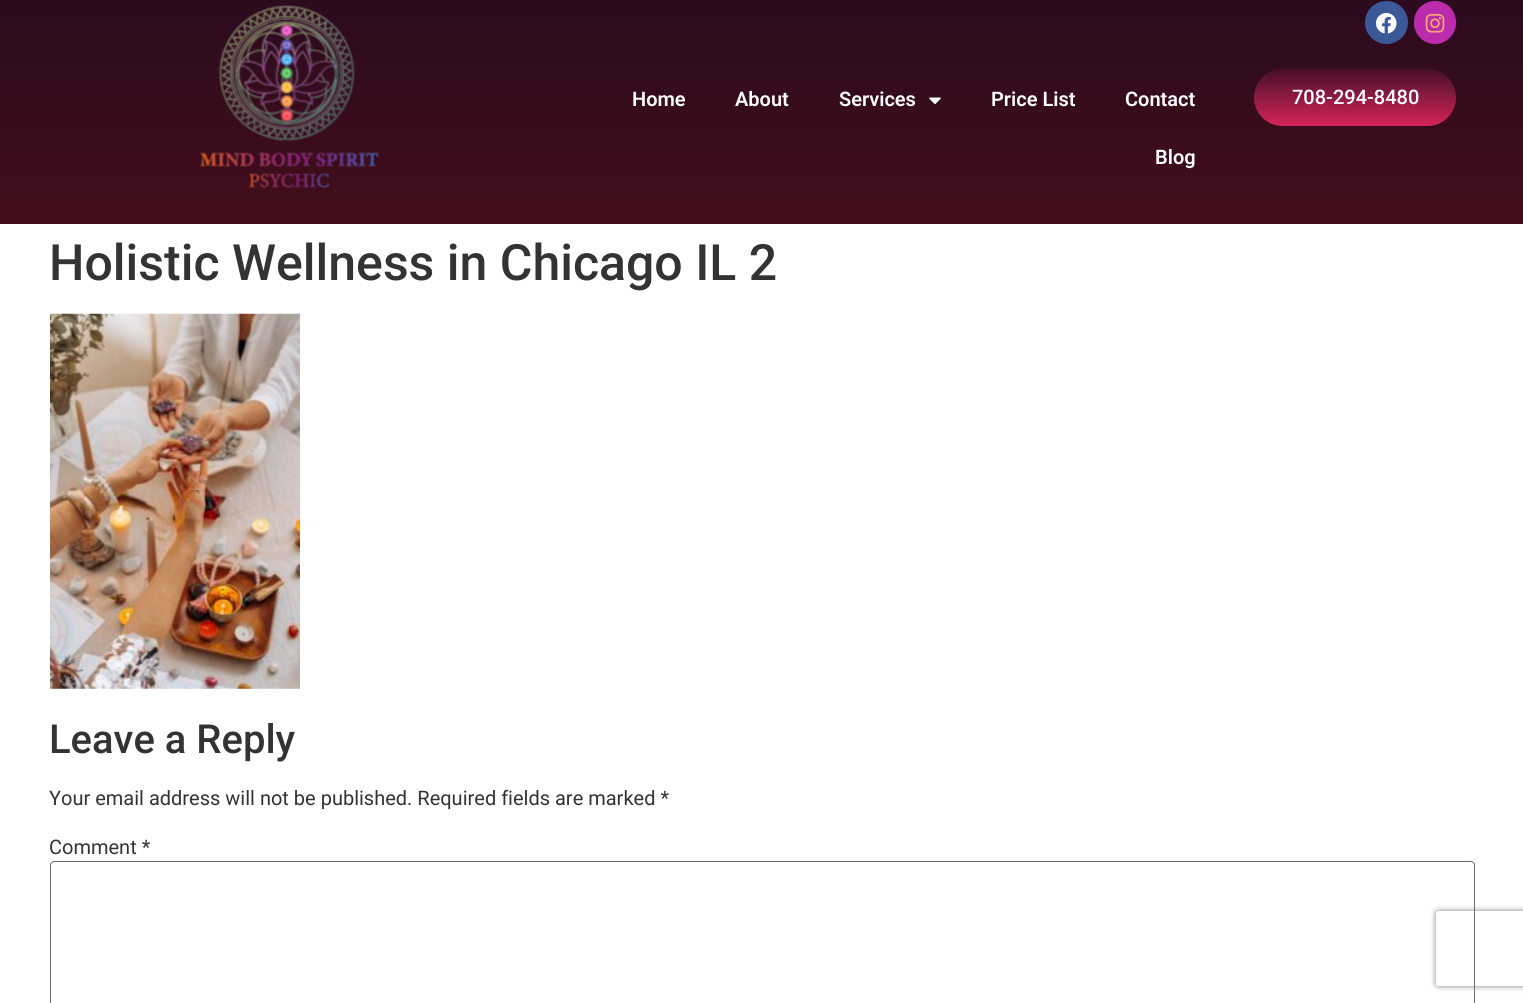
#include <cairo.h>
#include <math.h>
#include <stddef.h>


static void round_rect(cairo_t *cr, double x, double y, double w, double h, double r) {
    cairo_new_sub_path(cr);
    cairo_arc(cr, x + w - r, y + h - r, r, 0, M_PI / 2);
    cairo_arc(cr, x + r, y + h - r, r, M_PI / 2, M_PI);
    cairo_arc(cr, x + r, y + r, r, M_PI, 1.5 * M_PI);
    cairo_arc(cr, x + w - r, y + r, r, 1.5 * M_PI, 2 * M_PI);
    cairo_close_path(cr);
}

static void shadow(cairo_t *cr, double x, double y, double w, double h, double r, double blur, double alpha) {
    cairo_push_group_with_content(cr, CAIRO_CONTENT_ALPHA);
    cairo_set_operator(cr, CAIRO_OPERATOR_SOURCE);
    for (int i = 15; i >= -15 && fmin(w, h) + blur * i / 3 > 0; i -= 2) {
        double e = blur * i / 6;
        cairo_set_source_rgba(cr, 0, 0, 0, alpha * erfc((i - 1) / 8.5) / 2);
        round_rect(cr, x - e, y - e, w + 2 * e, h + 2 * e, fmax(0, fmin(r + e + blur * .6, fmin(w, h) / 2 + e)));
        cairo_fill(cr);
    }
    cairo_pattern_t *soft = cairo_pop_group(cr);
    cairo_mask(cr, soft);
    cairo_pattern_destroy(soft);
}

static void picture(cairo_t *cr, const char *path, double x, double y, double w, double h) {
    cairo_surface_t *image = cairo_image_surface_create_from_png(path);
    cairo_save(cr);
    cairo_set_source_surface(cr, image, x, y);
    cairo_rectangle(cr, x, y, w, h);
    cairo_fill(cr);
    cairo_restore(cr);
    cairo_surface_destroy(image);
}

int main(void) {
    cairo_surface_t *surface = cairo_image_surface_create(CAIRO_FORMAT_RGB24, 1523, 1003);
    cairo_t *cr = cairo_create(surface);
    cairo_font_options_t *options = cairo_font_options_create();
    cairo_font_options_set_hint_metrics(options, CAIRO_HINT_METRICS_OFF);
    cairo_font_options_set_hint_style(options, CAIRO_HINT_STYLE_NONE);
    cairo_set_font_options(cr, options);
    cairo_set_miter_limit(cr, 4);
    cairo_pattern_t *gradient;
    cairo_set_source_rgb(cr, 1, 1, 1);
    cairo_paint(cr);
    gradient = cairo_pattern_create_linear(762, -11, 762, 224);
    cairo_pattern_add_color_stop_rgba(gradient, 0, 0.165, 0.043, 0.118, 1);
    cairo_pattern_add_color_stop_rgba(gradient, 1, 0.263, 0.051, 0.106, 1);
    cairo_set_source(cr, gradient);
    cairo_pattern_destroy(gradient);
    cairo_rectangle(cr, 0, 0, 1523, 224);
    cairo_fill(cr);
    picture(cr, "img1.png", 199, 5, 180, 184);
    cairo_select_font_face(cr, "Roboto SemiBold", CAIRO_FONT_SLANT_NORMAL, CAIRO_FONT_WEIGHT_NORMAL);
    cairo_set_font_size(cr, 20);
    cairo_set_source_rgb(cr, 1, 1, 1);
    cairo_move_to(cr, 632, 106);
    cairo_show_text(cr, "Home");
    cairo_move_to(cr, 735, 106);
    cairo_show_text(cr, "About");
    cairo_move_to(cr, 839, 106);
    cairo_show_text(cr, "Services");
    picture(cr, "img2.png", 929, 97, 12, 7);
    cairo_move_to(cr, 991, 106);
    cairo_show_text(cr, "Price List");
    cairo_move_to(cr, 1125, 106);
    cairo_show_text(cr, "Contact");
    cairo_move_to(cr, 1155, 164);
    cairo_show_text(cr, "Blog");
    cairo_set_source_rgb(cr, 0.231, 0.349, 0.596);
    cairo_new_path(cr);
    cairo_arc(cr, 1386.5, 22.5, 21.5, 0, 2 * M_PI);
    cairo_fill(cr);
    picture(cr, "img3.png", 1376, 13, 21, 21);
    cairo_set_source_rgb(cr, 0.729, 0.173, 0.671);
    round_rect(cr, 1414, 1, 42, 43, 21);
    cairo_fill(cr);
    picture(cr, "img4.png", 1425, 13, 20, 20);
    gradient = cairo_pattern_create_linear(1355, 69, 1355, 126);
    cairo_pattern_add_color_stop_rgba(gradient, 0, 0.278, 0.059, 0.169, 1);
    cairo_pattern_add_color_stop_rgba(gradient, 1, 0.835, 0.145, 0.341, 1);
    cairo_set_source(cr, gradient);
    cairo_pattern_destroy(gradient);
    round_rect(cr, 1254, 69, 202, 57, 28.5);
    cairo_fill(cr);
    cairo_select_font_face(cr, "Roboto Medium", CAIRO_FONT_SLANT_NORMAL, CAIRO_FONT_WEIGHT_NORMAL);
    cairo_set_source_rgb(cr, 1, 1, 1);
    cairo_move_to(cr, 1292, 104);
    cairo_show_text(cr, "708-294-8480");
    cairo_set_font_size(cr, 50);
    cairo_set_source_rgb(cr, 0.2, 0.2, 0.2);
    cairo_move_to(cr, 49, 280);
    cairo_show_text(cr, "Holistic Wellness in Chicago IL 2");
    picture(cr, "img5.png", 50, 313, 250, 376);
    cairo_set_font_size(cr, 40);
    cairo_move_to(cr, 49, 753);
    cairo_show_text(cr, "Leave a Reply");
    cairo_select_font_face(cr, "Roboto", CAIRO_FONT_SLANT_NORMAL, CAIRO_FONT_WEIGHT_NORMAL);
    cairo_set_font_size(cr, 20);
    cairo_move_to(cr, 49, 805);
    cairo_show_text(cr, "Your email address will not be published. Required fields are marked *");
    cairo_move_to(cr, 49, 854);
    cairo_show_text(cr, "Comment *");
    round_rect(cr, 50.5, 861.5, 1424, 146, 3.5);
    cairo_set_source_rgb(cr, 0.4, 0.4, 0.4);
    cairo_set_line_width(cr, 1);
    cairo_stroke(cr);
    cairo_save(cr);
    cairo_set_fill_rule(cr, CAIRO_FILL_RULE_EVEN_ODD);
    cairo_new_path(cr);
    cairo_move_to(cr, 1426, 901);
    cairo_line_to(cr, 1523, 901);
    cairo_line_to(cr, 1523, 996);
    cairo_line_to(cr, 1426, 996);
    cairo_close_path(cr);
    cairo_move_to(cr, 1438.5, 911);
    cairo_line_to(cr, 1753.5, 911);
    cairo_curve_to(cr, 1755, 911, 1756, 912, 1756, 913.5);
    cairo_line_to(cr, 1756, 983.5);
    cairo_curve_to(cr, 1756, 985, 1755, 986, 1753.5, 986);
    cairo_line_to(cr, 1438.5, 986);
    cairo_curve_to(cr, 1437, 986, 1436, 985, 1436, 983.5);
    cairo_line_to(cr, 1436, 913.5);
    cairo_curve_to(cr, 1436, 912, 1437, 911, 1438.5, 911);
    cairo_close_path(cr);
    cairo_clip(cr);
    cairo_set_source_rgb(cr, 0.502, 0.502, 0.502);
    shadow(cr, 1436, 911, 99, 75, 2.5, 3, 1);
    cairo_restore(cr);
    cairo_surface_write_to_png(surface, "page.png");
    cairo_font_options_destroy(options);
    cairo_destroy(cr);
    cairo_surface_destroy(surface);
    return 0;
}
